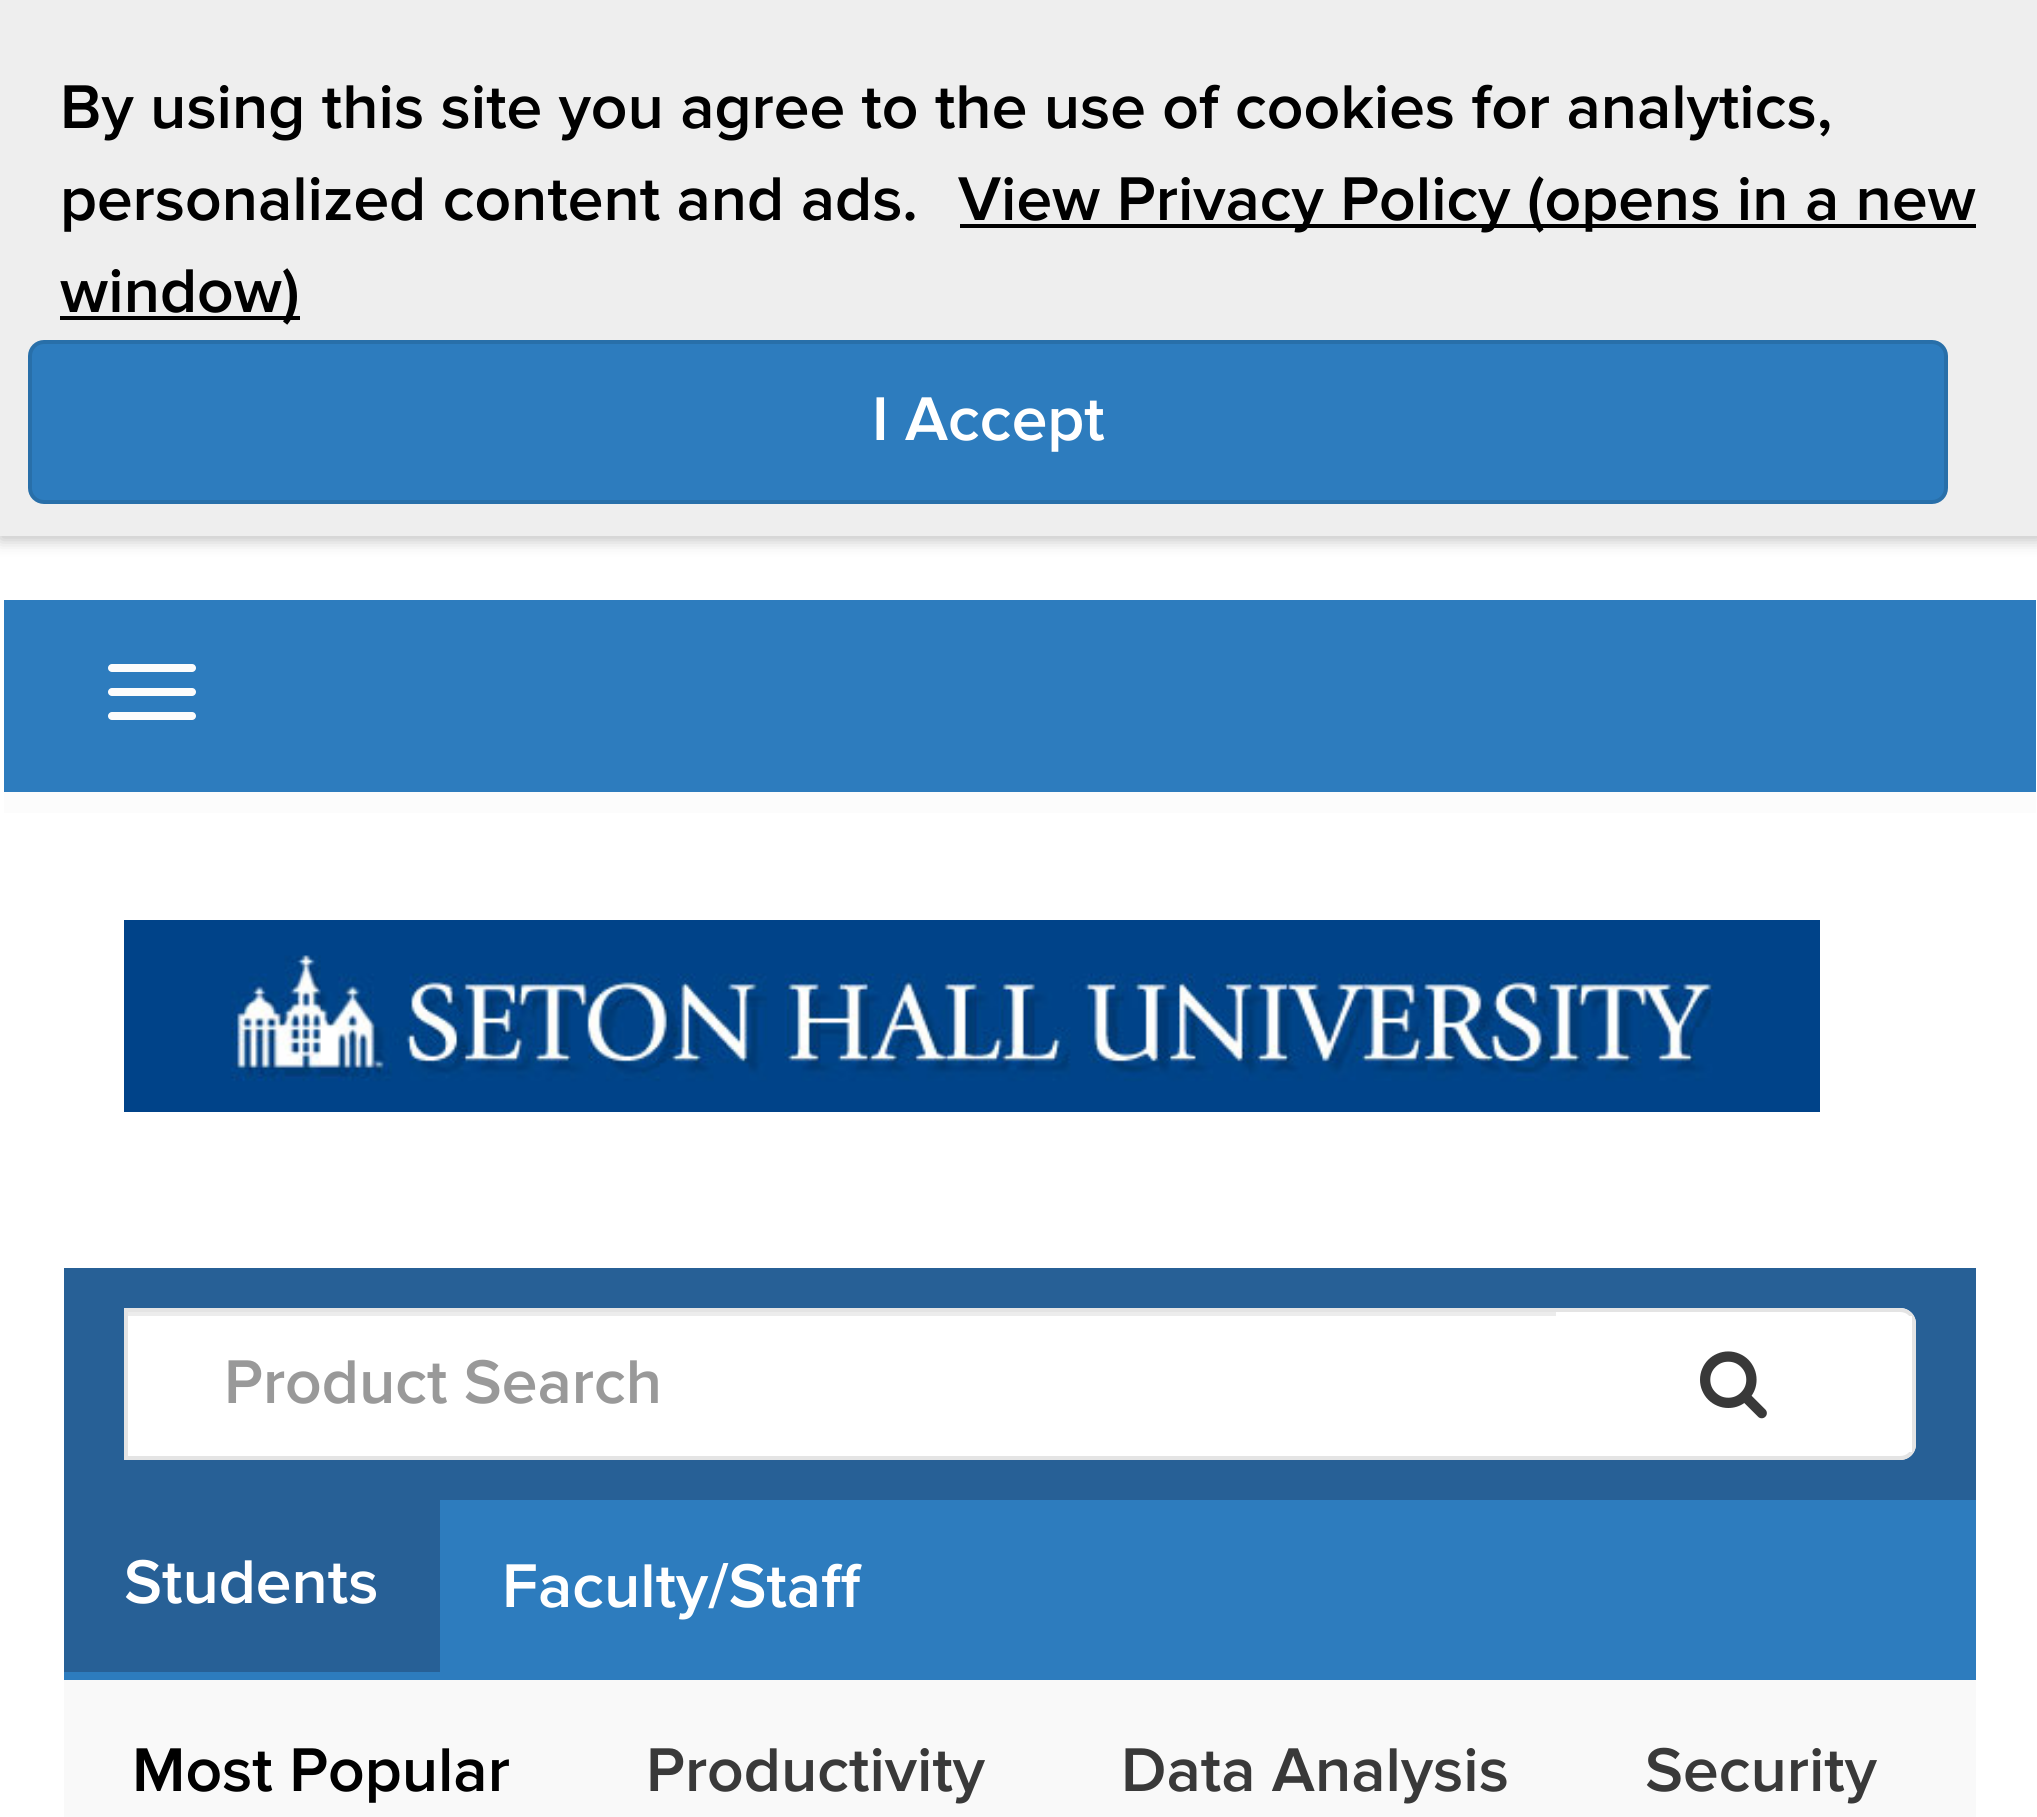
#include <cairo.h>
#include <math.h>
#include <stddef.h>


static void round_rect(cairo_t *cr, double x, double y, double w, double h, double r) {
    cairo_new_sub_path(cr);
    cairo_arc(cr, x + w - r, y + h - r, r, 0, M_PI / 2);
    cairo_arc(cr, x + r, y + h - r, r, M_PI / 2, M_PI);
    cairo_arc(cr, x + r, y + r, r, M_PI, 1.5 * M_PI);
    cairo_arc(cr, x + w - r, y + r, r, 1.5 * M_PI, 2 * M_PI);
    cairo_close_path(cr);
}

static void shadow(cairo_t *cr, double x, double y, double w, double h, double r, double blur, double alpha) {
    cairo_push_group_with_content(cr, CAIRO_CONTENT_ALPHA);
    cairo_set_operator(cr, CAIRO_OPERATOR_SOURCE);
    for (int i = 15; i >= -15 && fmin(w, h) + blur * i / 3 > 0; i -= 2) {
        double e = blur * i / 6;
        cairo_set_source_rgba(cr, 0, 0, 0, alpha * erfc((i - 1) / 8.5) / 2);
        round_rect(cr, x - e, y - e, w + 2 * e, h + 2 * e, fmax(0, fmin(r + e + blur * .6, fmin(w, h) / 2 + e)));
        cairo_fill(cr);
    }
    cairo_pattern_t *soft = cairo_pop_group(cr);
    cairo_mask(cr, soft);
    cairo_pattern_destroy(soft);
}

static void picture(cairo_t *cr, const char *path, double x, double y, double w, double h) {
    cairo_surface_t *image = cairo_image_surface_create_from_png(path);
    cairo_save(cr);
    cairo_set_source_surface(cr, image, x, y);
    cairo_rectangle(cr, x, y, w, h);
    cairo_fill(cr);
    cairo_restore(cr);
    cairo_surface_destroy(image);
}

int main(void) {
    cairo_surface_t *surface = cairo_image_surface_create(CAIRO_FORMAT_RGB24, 2037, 1817);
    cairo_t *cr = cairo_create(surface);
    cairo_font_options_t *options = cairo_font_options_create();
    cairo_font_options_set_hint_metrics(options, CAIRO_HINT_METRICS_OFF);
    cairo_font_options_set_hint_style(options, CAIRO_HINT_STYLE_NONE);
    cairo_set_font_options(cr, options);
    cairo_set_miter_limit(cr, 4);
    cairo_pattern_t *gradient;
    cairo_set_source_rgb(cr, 1, 1, 1);
    cairo_paint(cr);
    cairo_set_source_rgb(cr, 0, 0, 0);
    shadow(cr, 0, 4, 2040, 536, 0, 8, 0.25);
    cairo_set_source_rgb(cr, 0.933, 0.933, 0.933);
    cairo_rectangle(cr, 0, 0, 2037, 536);
    cairo_fill(cr);
    cairo_select_font_face(cr, "Proxima Nova SemiBold", CAIRO_FONT_SLANT_NORMAL, CAIRO_FONT_WEIGHT_NORMAL);
    cairo_set_font_size(cr, 64);
    cairo_set_source_rgb(cr, 0, 0, 0);
    cairo_move_to(cr, 60, 128);
    cairo_show_text(cr, "By using this site you agree to the use of cookies for analytics,");
    cairo_move_to(cr, 60, 220);
    cairo_show_text(cr, "personalized content and ads.");
    cairo_rectangle(cr, 960, 224, 1016, 4);
    cairo_fill(cr);
    cairo_move_to(cr, 958, 220);
    cairo_show_text(cr, "View Privacy Policy (opens in a new");
    cairo_rectangle(cr, 60, 316, 240, 4);
    cairo_fill(cr);
    cairo_move_to(cr, 60, 312);
    cairo_show_text(cr, "window)");
    cairo_set_source_rgb(cr, 0.176, 0.486, 0.745);
    round_rect(cr, 30, 342, 1916, 160, 14);
    cairo_fill_preserve(cr);
    cairo_set_source_rgb(cr, 0.157, 0.435, 0.663);
    cairo_set_line_width(cr, 4);
    cairo_stroke(cr);
    cairo_set_source_rgb(cr, 1, 1, 1);
    cairo_move_to(cr, 872, 440);
    cairo_show_text(cr, "I Accept");
    cairo_set_source_rgb(cr, 0.176, 0.486, 0.745);
    cairo_rectangle(cr, 4, 600, 2032, 192);
    cairo_fill(cr);
    cairo_set_source_rgb(cr, 0.988, 0.988, 0.988);
    round_rect(cr, 108, 664, 88, 8, 4);
    cairo_fill(cr);
    round_rect(cr, 108, 688, 88, 8, 4);
    cairo_fill(cr);
    round_rect(cr, 108, 712, 88, 8, 4);
    cairo_fill(cr);
    gradient = cairo_pattern_create_linear(1020, 792, 1020, 920);
    cairo_pattern_add_color_stop_rgba(gradient, 0, 0.988, 0.988, 0.988, 1);
    cairo_pattern_add_color_stop_rgba(gradient, 1, 1, 1, 1, 1);
    cairo_set_source(cr, gradient);
    cairo_pattern_destroy(gradient);
    cairo_rectangle(cr, 4, 792, 2032, 21);
    cairo_fill(cr);
    picture(cr, "img1.png", 124, 920, 1696, 192);
    cairo_set_source_rgb(cr, 0.153, 0.376, 0.588);
    cairo_rectangle(cr, 64, 1268, 1912, 232);
    cairo_fill(cr);
    cairo_set_source_rgb(cr, 1, 1, 1);
    cairo_rectangle(cr, 128, 1316, 1428, 140);
    cairo_fill(cr);
    cairo_set_source_rgb(cr, 0.925, 0.925, 0.925);
    cairo_rectangle(cr, 128, 1312, 1428, 4);
    cairo_fill(cr);
    cairo_set_source_rgb(cr, 0.894, 0.894, 0.894);
    cairo_rectangle(cr, 124, 1308, 1432, 4);
    cairo_fill(cr);
    cairo_rectangle(cr, 124, 1456, 1432, 4);
    cairo_fill(cr);
    cairo_rectangle(cr, 124, 1308, 4, 152);
    cairo_fill(cr);
    cairo_set_source_rgb(cr, 0.6, 0.6, 0.6);
    cairo_move_to(cr, 224, 1403);
    cairo_show_text(cr, "Product Search");
    cairo_set_source_rgb(cr, 1, 1, 1);
    cairo_new_path(cr);
    cairo_move_to(cr, 1556, 1308);
    cairo_line_to(cr, 1900, 1308);
    cairo_curve_to(cr, 1909, 1308, 1916, 1315, 1916, 1324);
    cairo_line_to(cr, 1916, 1444);
    cairo_curve_to(cr, 1916, 1453, 1909, 1460, 1900, 1460);
    cairo_line_to(cr, 1556, 1460);
    cairo_close_path(cr);
    cairo_fill(cr);
    cairo_set_source_rgb(cr, 0.894, 0.894, 0.894);
    cairo_set_fill_rule(cr, CAIRO_FILL_RULE_EVEN_ODD);
    cairo_new_path(cr);
    cairo_move_to(cr, 1556, 1308);
    cairo_line_to(cr, 1900, 1308);
    cairo_curve_to(cr, 1909, 1308, 1916, 1315, 1916, 1324);
    cairo_line_to(cr, 1916, 1444);
    cairo_curve_to(cr, 1916, 1453, 1909, 1460, 1900, 1460);
    cairo_line_to(cr, 1556, 1460);
    cairo_close_path(cr);
    cairo_move_to(cr, 1556, 1312);
    cairo_line_to(cr, 1900, 1312);
    cairo_curve_to(cr, 1907, 1312, 1912, 1317, 1912, 1324);
    cairo_line_to(cr, 1912, 1444);
    cairo_curve_to(cr, 1912, 1451, 1907, 1456, 1900, 1456);
    cairo_line_to(cr, 1556, 1456);
    cairo_close_path(cr);
    cairo_fill(cr);
    cairo_set_source_rgb(cr, 1, 1, 1);
    cairo_rectangle(cr, 1909, 1316, 3, 136);
    cairo_fill(cr);
    picture(cr, "img2.png", 1700, 1351, 67, 68);
    cairo_set_source_rgb(cr, 0.176, 0.486, 0.745);
    cairo_rectangle(cr, 64, 1500, 1912, 180);
    cairo_fill(cr);
    cairo_set_source_rgb(cr, 0.153, 0.376, 0.588);
    cairo_rectangle(cr, 64, 1500, 376, 172);
    cairo_fill(cr);
    cairo_set_source_rgb(cr, 1, 1, 1);
    cairo_move_to(cr, 124, 1603);
    cairo_show_text(cr, "Students");
    cairo_move_to(cr, 502, 1607);
    cairo_show_text(cr, "Faculty/Staff");
    cairo_set_source_rgb(cr, 0.973, 0.973, 0.973);
    cairo_rectangle(cr, 64, 1680, 1912, 137);
    cairo_fill(cr);
    cairo_set_source_rgb(cr, 0, 0, 0);
    cairo_move_to(cr, 132, 1791);
    cairo_show_text(cr, "Most Popular");
    cairo_set_source_rgb(cr, 0.224, 0.224, 0.224);
    cairo_move_to(cr, 646, 1791);
    cairo_show_text(cr, "Productivity");
    cairo_move_to(cr, 1121, 1791);
    cairo_show_text(cr, "Data Analysis");
    cairo_move_to(cr, 1645, 1791);
    cairo_show_text(cr, "Security");
    cairo_surface_write_to_png(surface, "page.png");
    cairo_font_options_destroy(options);
    cairo_destroy(cr);
    cairo_surface_destroy(surface);
    return 0;
}
